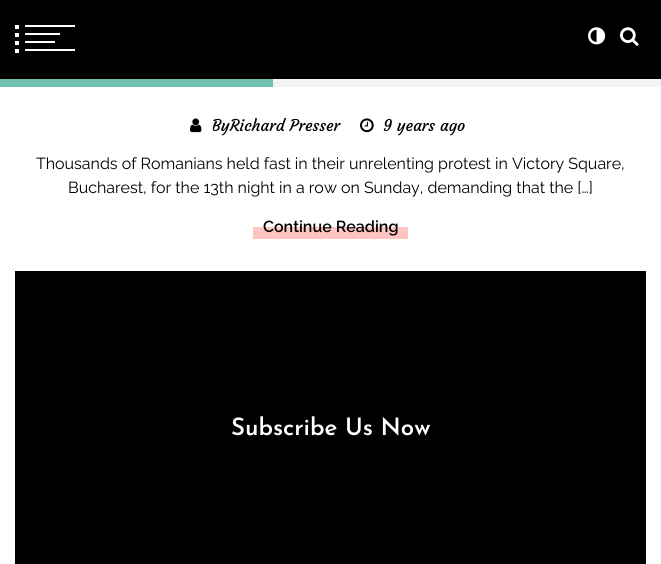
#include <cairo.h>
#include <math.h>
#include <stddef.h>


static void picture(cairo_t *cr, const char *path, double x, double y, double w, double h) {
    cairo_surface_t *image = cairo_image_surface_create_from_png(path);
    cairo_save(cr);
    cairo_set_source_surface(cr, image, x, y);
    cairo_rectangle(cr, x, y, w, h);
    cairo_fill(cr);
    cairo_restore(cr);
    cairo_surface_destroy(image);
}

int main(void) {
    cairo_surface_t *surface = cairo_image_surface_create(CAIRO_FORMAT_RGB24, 661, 564);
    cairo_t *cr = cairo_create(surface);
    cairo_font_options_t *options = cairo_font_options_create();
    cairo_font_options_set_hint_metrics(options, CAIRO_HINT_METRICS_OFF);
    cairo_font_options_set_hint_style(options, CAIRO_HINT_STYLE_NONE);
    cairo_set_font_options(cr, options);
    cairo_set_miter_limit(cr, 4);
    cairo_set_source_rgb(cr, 1, 1, 1);
    cairo_paint(cr);
    cairo_set_source_rgb(cr, 0, 0, 0);
    cairo_rectangle(cr, 0, 0, 661, 79);
    cairo_fill(cr);
    cairo_set_source_rgb(cr, 1, 1, 1);
    cairo_rectangle(cr, 15, 25, 4, 4);
    cairo_fill(cr);
    cairo_rectangle(cr, 25, 25, 50, 2);
    cairo_fill(cr);
    cairo_rectangle(cr, 15, 33, 4, 4);
    cairo_fill(cr);
    cairo_rectangle(cr, 25, 33, 35, 2);
    cairo_fill(cr);
    cairo_rectangle(cr, 15, 41, 4, 4);
    cairo_fill(cr);
    cairo_rectangle(cr, 25, 41, 30, 2);
    cairo_fill(cr);
    cairo_rectangle(cr, 15, 49, 4, 4);
    cairo_fill(cr);
    cairo_rectangle(cr, 25, 49, 50, 2);
    cairo_fill(cr);
    picture(cr, "img1.png", 588, 27, 18, 18);
    picture(cr, "img2.png", 620, 27, 19, 19);
    cairo_set_source_rgb(cr, 0.439, 0.757, 0.702);
    cairo_rectangle(cr, 0, 79, 273, 8);
    cairo_fill(cr);
    cairo_set_source_rgb(cr, 0.953, 0.953, 0.953);
    cairo_rectangle(cr, 273, 79, 388, 8);
    cairo_fill(cr);
    picture(cr, "img3.png", 190, 118, 12, 15);
    cairo_select_font_face(cr, "Courgette", CAIRO_FONT_SLANT_NORMAL, CAIRO_FONT_WEIGHT_NORMAL);
    cairo_set_font_size(cr, 16);
    cairo_set_source_rgb(cr, 0, 0, 0);
    cairo_move_to(cr, 212, 131);
    cairo_show_text(cr, "ByRichard Presser");
    picture(cr, "img4.png", 360, 118, 14, 15);
    cairo_move_to(cr, 383, 131);
    cairo_show_text(cr, "9 years ago");
    cairo_select_font_face(cr, "Raleway", CAIRO_FONT_SLANT_NORMAL, CAIRO_FONT_WEIGHT_NORMAL);
    cairo_move_to(cr, 36, 169);
    cairo_show_text(cr, "Thousands of Romanians held fast in their unrelenting protest in Victory Square,");
    cairo_move_to(cr, 68, 193);
    cairo_show_text(cr, "Bucharest, for the 13th night in a row on Sunday, demanding that the […]");
    cairo_set_source_rgb(cr, 1, 0.773, 0.765);
    cairo_rectangle(cr, 253, 227, 155, 12);
    cairo_fill(cr);
    cairo_select_font_face(cr, "Raleway SemiBold", CAIRO_FONT_SLANT_NORMAL, CAIRO_FONT_WEIGHT_NORMAL);
    cairo_set_source_rgb(cr, 0, 0, 0);
    cairo_move_to(cr, 263, 232);
    cairo_show_text(cr, "Continue Reading");
    cairo_rectangle(cr, 15, 271, 631, 293);
    cairo_fill(cr);
    cairo_select_font_face(cr, "Josefin Sans SemiBold", CAIRO_FONT_SLANT_NORMAL, CAIRO_FONT_WEIGHT_NORMAL);
    cairo_set_font_size(cr, 24);
    cairo_set_source_rgb(cr, 1, 1, 1);
    cairo_move_to(cr, 231, 435);
    cairo_show_text(cr, "Subscribe Us Now");
    cairo_surface_write_to_png(surface, "page.png");
    cairo_font_options_destroy(options);
    cairo_destroy(cr);
    cairo_surface_destroy(surface);
    return 0;
}
